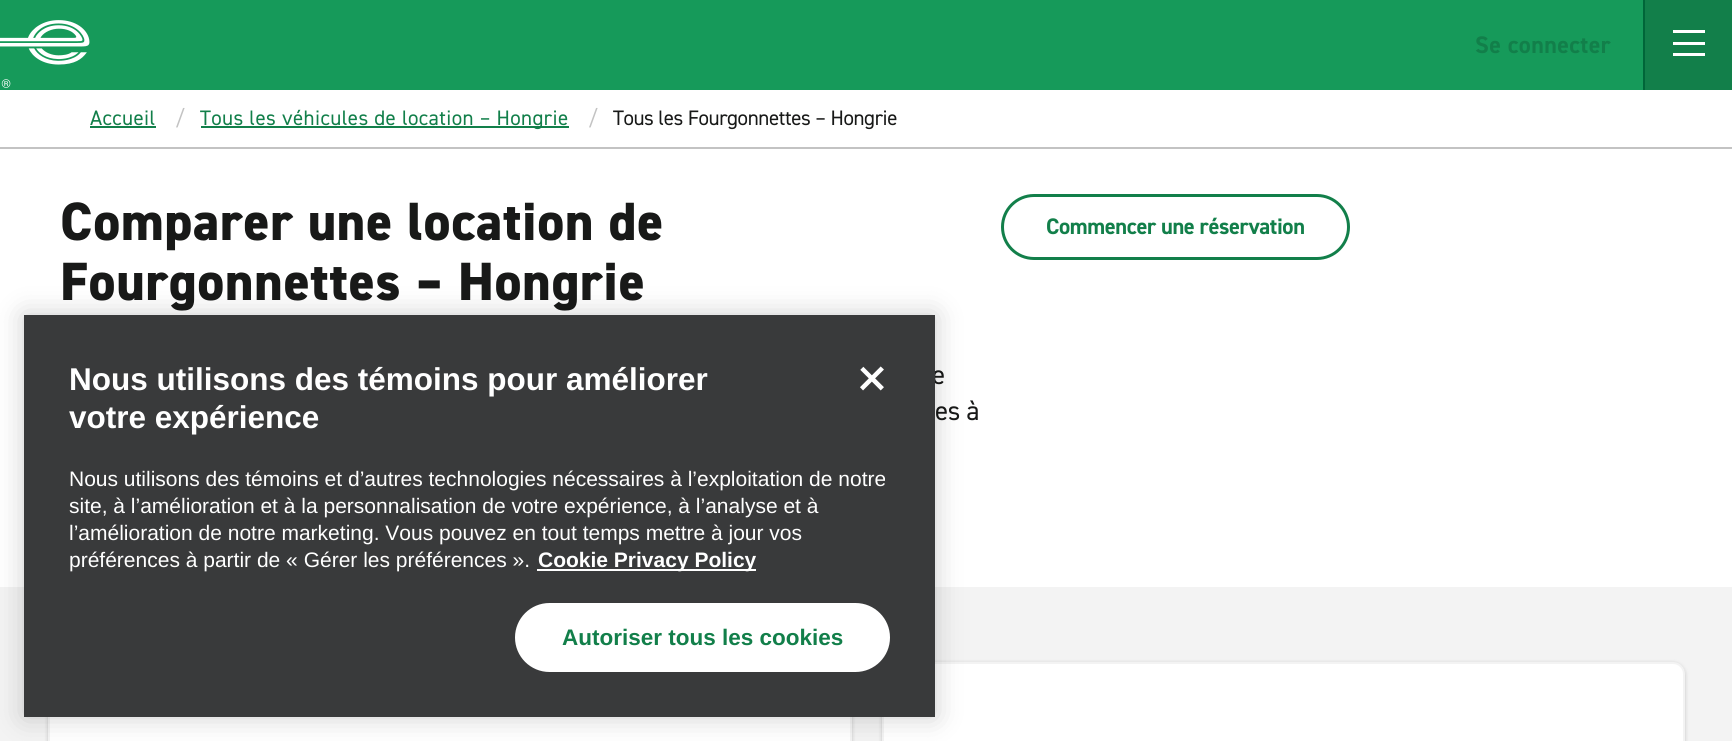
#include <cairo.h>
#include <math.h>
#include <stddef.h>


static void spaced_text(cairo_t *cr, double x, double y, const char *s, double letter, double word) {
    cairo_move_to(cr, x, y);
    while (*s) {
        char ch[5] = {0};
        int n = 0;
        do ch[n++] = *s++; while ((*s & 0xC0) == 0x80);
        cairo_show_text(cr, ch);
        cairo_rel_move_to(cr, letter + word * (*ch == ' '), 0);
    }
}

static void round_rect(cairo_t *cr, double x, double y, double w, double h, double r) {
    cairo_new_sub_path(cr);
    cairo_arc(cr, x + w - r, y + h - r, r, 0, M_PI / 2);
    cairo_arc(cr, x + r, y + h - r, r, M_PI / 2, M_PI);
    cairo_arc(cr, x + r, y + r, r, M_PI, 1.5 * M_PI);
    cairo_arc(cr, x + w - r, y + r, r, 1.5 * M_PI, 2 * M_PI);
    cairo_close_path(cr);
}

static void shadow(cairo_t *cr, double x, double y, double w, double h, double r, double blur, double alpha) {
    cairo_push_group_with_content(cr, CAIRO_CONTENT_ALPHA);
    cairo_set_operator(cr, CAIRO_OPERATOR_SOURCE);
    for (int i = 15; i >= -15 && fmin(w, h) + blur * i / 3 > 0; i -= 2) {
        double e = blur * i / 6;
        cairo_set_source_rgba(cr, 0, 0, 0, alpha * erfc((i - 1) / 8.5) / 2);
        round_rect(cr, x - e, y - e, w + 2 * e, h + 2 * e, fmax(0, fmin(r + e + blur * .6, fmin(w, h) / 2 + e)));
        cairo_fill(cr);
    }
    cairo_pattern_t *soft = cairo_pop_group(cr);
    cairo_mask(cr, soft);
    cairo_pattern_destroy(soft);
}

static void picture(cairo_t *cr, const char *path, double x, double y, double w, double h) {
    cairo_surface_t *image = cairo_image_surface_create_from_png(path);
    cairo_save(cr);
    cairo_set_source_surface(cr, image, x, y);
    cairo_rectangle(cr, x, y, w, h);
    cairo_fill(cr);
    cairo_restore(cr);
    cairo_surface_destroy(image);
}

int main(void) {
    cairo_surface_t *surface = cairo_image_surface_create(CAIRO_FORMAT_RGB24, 1732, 741);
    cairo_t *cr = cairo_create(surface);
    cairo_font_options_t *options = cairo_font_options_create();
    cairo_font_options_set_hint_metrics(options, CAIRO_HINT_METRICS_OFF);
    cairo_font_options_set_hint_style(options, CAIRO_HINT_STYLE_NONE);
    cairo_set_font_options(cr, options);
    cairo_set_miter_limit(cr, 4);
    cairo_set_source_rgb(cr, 1, 1, 1);
    cairo_paint(cr);
    cairo_set_source_rgb(cr, 0.086, 0.604, 0.353);
    cairo_rectangle(cr, 0, 0, 1643, 90);
    cairo_fill(cr);
    picture(cr, "img1.png", 0, 20, 90, 68);
    cairo_select_font_face(cr, "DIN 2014", CAIRO_FONT_SLANT_NORMAL, CAIRO_FONT_WEIGHT_BOLD);
    cairo_set_font_size(cr, 24);
    cairo_set_source_rgb(cr, 0.071, 0.498, 0.29);
    spaced_text(cr, 1475, 53, "Se connecter", 0.4, 0);
    cairo_rectangle(cr, 1645, 0, 87, 90);
    cairo_fill(cr);
    cairo_set_source_rgb(cr, 0, 0.4, 0.224);
    cairo_rectangle(cr, 1643, 0, 2, 90);
    cairo_fill(cr);
    cairo_set_source_rgb(cr, 1, 1, 1);
    cairo_rectangle(cr, 1673, 53, 32, 3);
    cairo_fill(cr);
    cairo_rectangle(cr, 1673, 42, 32, 3);
    cairo_fill(cr);
    cairo_rectangle(cr, 1673, 30, 32, 3);
    cairo_fill(cr);
    cairo_set_source_rgb(cr, 0.765, 0.765, 0.765);
    cairo_rectangle(cr, 0, 147, 1732, 2);
    cairo_fill(cr);
    cairo_select_font_face(cr, "DIN 2014", CAIRO_FONT_SLANT_NORMAL, CAIRO_FONT_WEIGHT_NORMAL);
    cairo_set_font_size(cr, 21);
    cairo_set_source_rgb(cr, 0.071, 0.498, 0.29);
    spaced_text(cr, 90, 125, "Accueil", 0.4, 0);
    cairo_rectangle(cr, 90, 126, 66, 2);
    cairo_fill(cr);
    cairo_set_source_rgb(cr, 0.765, 0.765, 0.765);
    spaced_text(cr, 175, 125, "/", -0.4, 0);
    cairo_set_source_rgb(cr, 0.071, 0.498, 0.29);
    cairo_rectangle(cr, 201, 126, 368, 2);
    cairo_fill(cr);
    spaced_text(cr, 200, 125, "Tous les véhicules de location – Hongrie", 0.4, 0);
    cairo_set_source_rgb(cr, 0.765, 0.765, 0.765);
    spaced_text(cr, 588, 125, "/", -0.4, 0);
    cairo_set_source_rgb(cr, 0.094, 0.098, 0.094);
    spaced_text(cr, 613, 125, "Tous les Fourgonnettes – Hongrie", -0.4, 0);
    cairo_select_font_face(cr, "DIN 2014 ExtraBold", CAIRO_FONT_SLANT_NORMAL, CAIRO_FONT_WEIGHT_NORMAL);
    cairo_set_font_size(cr, 54);
    spaced_text(cr, 60, 240, "Comparer une location de", 0.75, 0);
    spaced_text(cr, 60, 300, "Fourgonnettes – Hongrie", 0.75, 0);
    cairo_select_font_face(cr, "DIN 2014", CAIRO_FONT_SLANT_NORMAL, CAIRO_FONT_WEIGHT_NORMAL);
    cairo_set_font_size(cr, 27);
    spaced_text(cr, 932, 384, "e", -0.4, 0);
    spaced_text(cr, 935, 420, "es à", -0.4, 0);
    round_rect(cr, 1002.5, 195.5, 346, 63, 31.5);
    cairo_set_source_rgb(cr, 0.071, 0.498, 0.29);
    cairo_set_line_width(cr, 3);
    cairo_stroke(cr);
    cairo_select_font_face(cr, "DIN 2014", CAIRO_FONT_SLANT_NORMAL, CAIRO_FONT_WEIGHT_BOLD);
    cairo_set_font_size(cr, 22.5);
    spaced_text(cr, 1046, 234, "Commencer une réservation", -0.4, 0);
    cairo_set_source_rgb(cr, 0.953, 0.953, 0.953);
    cairo_rectangle(cr, 0, 587, 1732, 154);
    cairo_fill(cr);
    cairo_set_source_rgb(cr, 0, 0, 0);
    shadow(cr, 48, 663, 804, 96, 12, 2, 0.2);
    cairo_set_source_rgb(cr, 1, 1, 1);
    cairo_rectangle(cr, 50, 717, 800, 24);
    cairo_fill(cr);
    cairo_rectangle(cr, 49, 663, 802, 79);
    cairo_set_source_rgb(cr, 0.953, 0.953, 0.953);
    cairo_set_line_width(cr, 2);
    cairo_stroke(cr);
    cairo_set_source_rgb(cr, 0, 0, 0);
    shadow(cr, 882, 663, 803, 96, 12, 2, 0.2);
    cairo_set_source_rgb(cr, 1, 1, 1);
    round_rect(cr, 883, 663, 801, 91, 11);
    cairo_fill_preserve(cr);
    cairo_set_source_rgb(cr, 0.953, 0.953, 0.953);
    cairo_stroke(cr);
    cairo_set_source_rgb(cr, 0, 0, 0);
    shadow(cr, 24, 315, 911, 402, 0, 13.5, 0.2);
    cairo_set_source_rgb(cr, 0.224, 0.227, 0.231);
    cairo_rectangle(cr, 24, 315, 911, 402);
    cairo_fill(cr);
    cairo_select_font_face(cr, "Liberation Sans", CAIRO_FONT_SLANT_NORMAL, CAIRO_FONT_WEIGHT_BOLD);
    cairo_set_font_size(cr, 31.5);
    cairo_set_source_rgb(cr, 1, 1, 1);
    cairo_move_to(cr, 69, 390);
    cairo_show_text(cr, "Nous utilisons des témoins pour améliorer");
    cairo_move_to(cr, 69, 428);
    cairo_show_text(cr, "votre expérience");
    cairo_select_font_face(cr, "Liberation Sans", CAIRO_FONT_SLANT_NORMAL, CAIRO_FONT_WEIGHT_NORMAL);
    cairo_set_font_size(cr, 21);
    cairo_move_to(cr, 69, 486);
    cairo_show_text(cr, "Nous utilisons des témoins et d’autres technologies nécessaires à l’exploitation de notre");
    cairo_move_to(cr, 69, 513);
    cairo_show_text(cr, "site, à l’amélioration et à la personnalisation de votre expérience, à l’analyse et à");
    cairo_move_to(cr, 69, 540);
    cairo_show_text(cr, "l’amélioration de notre marketing. Vous pouvez en tout temps mettre à jour vos");
    cairo_move_to(cr, 69, 567);
    cairo_show_text(cr, "préférences à partir de « Gérer les préférences ».");
    cairo_rectangle(cr, 537, 569, 219, 2);
    cairo_fill(cr);
    cairo_select_font_face(cr, "Liberation Sans", CAIRO_FONT_SLANT_NORMAL, CAIRO_FONT_WEIGHT_BOLD);
    cairo_move_to(cr, 538, 567);
    cairo_show_text(cr, "Cookie Privacy Policy");
    picture(cr, "img2.png", 860, 366, 24, 25);
    round_rect(cr, 516, 604, 373, 67, 33.5);
    cairo_fill_preserve(cr);
    cairo_stroke(cr);
    cairo_set_font_size(cr, 22.5);
    cairo_set_source_rgb(cr, 0.071, 0.498, 0.29);
    cairo_move_to(cr, 562, 645);
    cairo_show_text(cr, "Autoriser tous les cookies");
    cairo_surface_write_to_png(surface, "page.png");
    cairo_font_options_destroy(options);
    cairo_destroy(cr);
    cairo_surface_destroy(surface);
    return 0;
}
